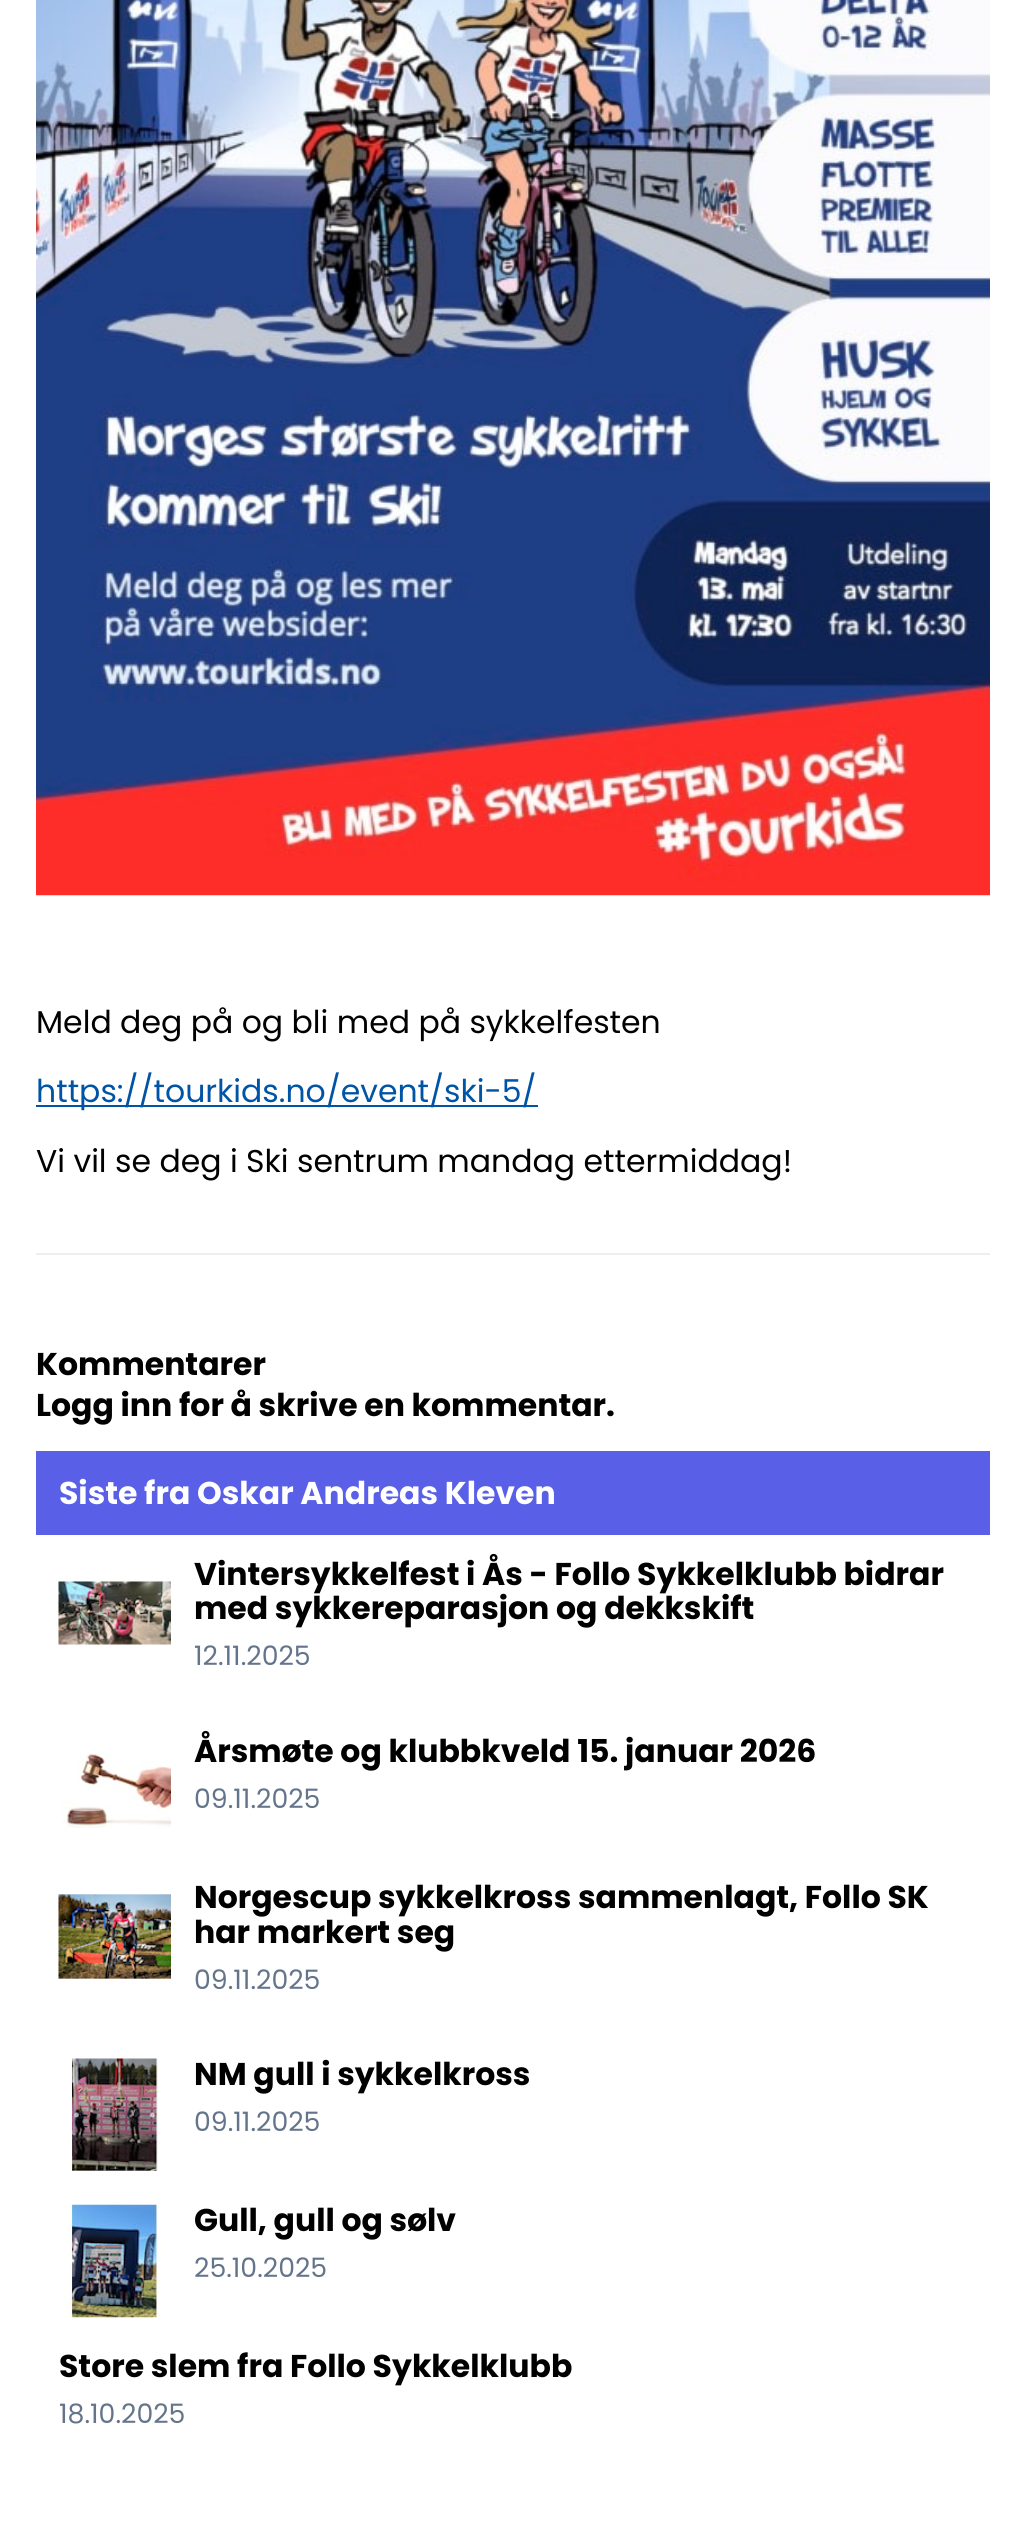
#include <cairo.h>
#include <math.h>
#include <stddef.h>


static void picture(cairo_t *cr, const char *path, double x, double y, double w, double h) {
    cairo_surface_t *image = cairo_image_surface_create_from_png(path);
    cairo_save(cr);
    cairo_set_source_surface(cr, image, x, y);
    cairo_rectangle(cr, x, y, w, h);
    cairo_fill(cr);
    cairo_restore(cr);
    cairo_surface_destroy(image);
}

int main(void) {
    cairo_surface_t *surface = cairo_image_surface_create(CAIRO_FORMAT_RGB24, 1026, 2521);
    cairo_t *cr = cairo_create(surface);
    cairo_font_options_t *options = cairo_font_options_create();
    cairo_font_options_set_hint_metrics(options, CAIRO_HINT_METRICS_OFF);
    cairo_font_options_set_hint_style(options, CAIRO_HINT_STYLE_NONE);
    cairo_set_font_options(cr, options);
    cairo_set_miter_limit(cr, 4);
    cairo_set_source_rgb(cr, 1, 1, 1);
    cairo_paint(cr);
    picture(cr, "img1.png", 36, 0, 954, 896);
    cairo_select_font_face(cr, "Poppins", CAIRO_FONT_SLANT_NORMAL, CAIRO_FONT_WEIGHT_NORMAL);
    cairo_set_font_size(cr, 31.5);
    cairo_set_source_rgb(cr, 0, 0, 0);
    cairo_move_to(cr, 36, 1033);
    cairo_show_text(cr, "Meld deg på og bli med på sykkelfesten");
    cairo_set_source_rgb(cr, 0, 0.329, 0.651);
    cairo_rectangle(cr, 36, 1105, 502, 2);
    cairo_fill(cr);
    cairo_move_to(cr, 36, 1102);
    cairo_show_text(cr, "https://tourkids.no/event/ski-5/");
    cairo_set_source_rgb(cr, 0, 0, 0);
    cairo_move_to(cr, 36, 1172);
    cairo_show_text(cr, "Vi vil se deg i Ski sentrum mandag ettermiddag!");
    cairo_set_source_rgb(cr, 0.933, 0.933, 0.933);
    cairo_rectangle(cr, 36, 1253, 954, 2);
    cairo_fill(cr);
    cairo_select_font_face(cr, "Poppins", CAIRO_FONT_SLANT_NORMAL, CAIRO_FONT_WEIGHT_BOLD);
    cairo_set_source_rgb(cr, 0, 0, 0);
    cairo_move_to(cr, 36, 1375);
    cairo_show_text(cr, "Kommentarer");
    cairo_move_to(cr, 36, 1416);
    cairo_show_text(cr, "Logg inn for å skrive en kommentar.");
    cairo_set_source_rgb(cr, 0.349, 0.373, 0.906);
    cairo_rectangle(cr, 36, 1451, 954, 84);
    cairo_fill(cr);
    cairo_set_source_rgb(cr, 1, 1, 1);
    cairo_move_to(cr, 59, 1504);
    cairo_show_text(cr, "Siste fra Oskar Andreas Kleven");
    picture(cr, "img2.png", 58, 1576, 113, 71);
    cairo_set_source_rgb(cr, 0, 0, 0);
    cairo_move_to(cr, 194, 1585);
    cairo_show_text(cr, "Vintersykkelfest i Ås - Follo Sykkelklubb bidrar");
    cairo_move_to(cr, 194, 1619);
    cairo_show_text(cr, "med sykkereparasjon og dekkskift");
    cairo_select_font_face(cr, "Poppins", CAIRO_FONT_SLANT_NORMAL, CAIRO_FONT_WEIGHT_NORMAL);
    cairo_set_font_size(cr, 26.75);
    cairo_set_source_rgb(cr, 0.392, 0.455, 0.545);
    cairo_move_to(cr, 194, 1665);
    cairo_show_text(cr, "12.11.2025");
    picture(cr, "img3.png", 61, 1753, 110, 75);
    cairo_select_font_face(cr, "Poppins", CAIRO_FONT_SLANT_NORMAL, CAIRO_FONT_WEIGHT_BOLD);
    cairo_set_font_size(cr, 31.5);
    cairo_set_source_rgb(cr, 0, 0, 0);
    cairo_move_to(cr, 194, 1762);
    cairo_show_text(cr, "Årsmøte og klubbkveld 15. januar 2026");
    cairo_select_font_face(cr, "Poppins", CAIRO_FONT_SLANT_NORMAL, CAIRO_FONT_WEIGHT_NORMAL);
    cairo_set_font_size(cr, 26.75);
    cairo_set_source_rgb(cr, 0.392, 0.455, 0.545);
    cairo_move_to(cr, 194, 1808);
    cairo_show_text(cr, "09.11.2025");
    picture(cr, "img4.png", 58, 1894, 113, 85);
    cairo_select_font_face(cr, "Poppins", CAIRO_FONT_SLANT_NORMAL, CAIRO_FONT_WEIGHT_BOLD);
    cairo_set_font_size(cr, 31.5);
    cairo_set_source_rgb(cr, 0, 0, 0);
    cairo_move_to(cr, 194, 1908);
    cairo_show_text(cr, "Norgescup sykkelkross sammenlagt, Follo SK");
    cairo_move_to(cr, 194, 1943);
    cairo_show_text(cr, "har markert seg");
    cairo_select_font_face(cr, "Poppins", CAIRO_FONT_SLANT_NORMAL, CAIRO_FONT_WEIGHT_NORMAL);
    cairo_set_font_size(cr, 26.75);
    cairo_set_source_rgb(cr, 0.392, 0.455, 0.545);
    cairo_move_to(cr, 194, 1989);
    cairo_show_text(cr, "09.11.2025");
    picture(cr, "img5.png", 72, 2058, 86, 113);
    cairo_select_font_face(cr, "Poppins", CAIRO_FONT_SLANT_NORMAL, CAIRO_FONT_WEIGHT_BOLD);
    cairo_set_font_size(cr, 31.5);
    cairo_set_source_rgb(cr, 0, 0, 0);
    cairo_move_to(cr, 194, 2085);
    cairo_show_text(cr, "NM gull i sykkelkross");
    cairo_select_font_face(cr, "Poppins", CAIRO_FONT_SLANT_NORMAL, CAIRO_FONT_WEIGHT_NORMAL);
    cairo_set_font_size(cr, 26.75);
    cairo_set_source_rgb(cr, 0.392, 0.455, 0.545);
    cairo_move_to(cr, 194, 2131);
    cairo_show_text(cr, "09.11.2025");
    picture(cr, "img6.png", 59, 2204, 107, 114);
    cairo_select_font_face(cr, "Poppins", CAIRO_FONT_SLANT_NORMAL, CAIRO_FONT_WEIGHT_BOLD);
    cairo_set_font_size(cr, 31.5);
    cairo_set_source_rgb(cr, 0, 0, 0);
    cairo_move_to(cr, 194, 2231);
    cairo_show_text(cr, "Gull, gull og sølv");
    cairo_select_font_face(cr, "Poppins", CAIRO_FONT_SLANT_NORMAL, CAIRO_FONT_WEIGHT_NORMAL);
    cairo_set_font_size(cr, 26.75);
    cairo_set_source_rgb(cr, 0.392, 0.455, 0.545);
    cairo_move_to(cr, 194, 2277);
    cairo_show_text(cr, "25.10.2025");
    cairo_select_font_face(cr, "Poppins", CAIRO_FONT_SLANT_NORMAL, CAIRO_FONT_WEIGHT_BOLD);
    cairo_set_font_size(cr, 31.5);
    cairo_set_source_rgb(cr, 0, 0, 0);
    cairo_move_to(cr, 59, 2377);
    cairo_show_text(cr, "Store slem fra Follo Sykkelklubb");
    cairo_select_font_face(cr, "Poppins", CAIRO_FONT_SLANT_NORMAL, CAIRO_FONT_WEIGHT_NORMAL);
    cairo_set_font_size(cr, 26.75);
    cairo_set_source_rgb(cr, 0.392, 0.455, 0.545);
    cairo_move_to(cr, 59, 2423);
    cairo_show_text(cr, "18.10.2025");
    cairo_surface_write_to_png(surface, "page.png");
    cairo_font_options_destroy(options);
    cairo_destroy(cr);
    cairo_surface_destroy(surface);
    return 0;
}
